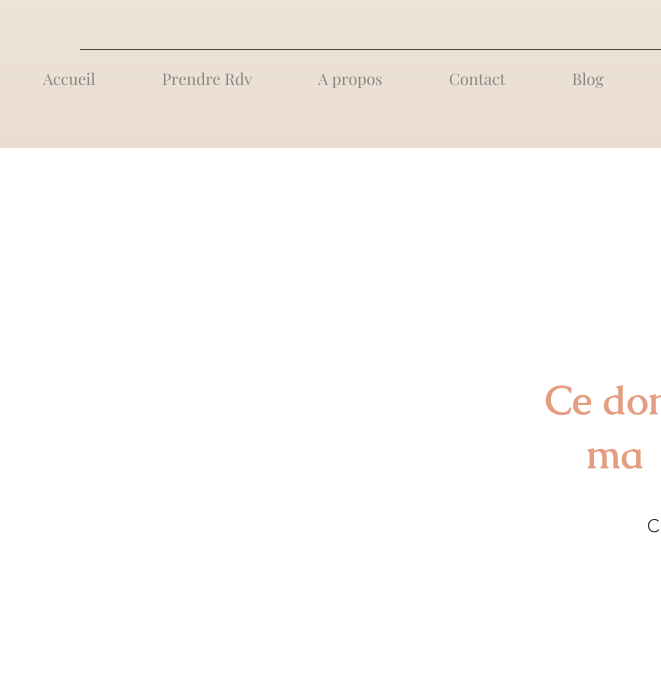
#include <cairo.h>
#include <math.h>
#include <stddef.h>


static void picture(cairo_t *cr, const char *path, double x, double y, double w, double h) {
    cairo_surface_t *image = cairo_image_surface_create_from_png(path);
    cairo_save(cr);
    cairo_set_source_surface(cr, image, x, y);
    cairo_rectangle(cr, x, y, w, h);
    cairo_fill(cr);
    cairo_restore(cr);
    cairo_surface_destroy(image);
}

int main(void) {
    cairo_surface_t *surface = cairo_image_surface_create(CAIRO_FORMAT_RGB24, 661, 697);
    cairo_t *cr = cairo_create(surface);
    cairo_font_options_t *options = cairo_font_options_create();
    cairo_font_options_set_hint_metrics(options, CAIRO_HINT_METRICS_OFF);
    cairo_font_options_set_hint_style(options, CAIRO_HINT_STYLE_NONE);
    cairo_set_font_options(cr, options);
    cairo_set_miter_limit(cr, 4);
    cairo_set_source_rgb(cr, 1, 1, 1);
    cairo_paint(cr);
    cairo_set_source_rgb(cr, 0.906, 0.851, 0.792);
    cairo_rectangle(cr, 0, 0, 661, 148);
    cairo_fill(cr);
    picture(cr, "img1.png", 0, 0, 661, 148);
    cairo_set_source_rgb(cr, 0.298, 0.259, 0.224);
    cairo_rectangle(cr, 80, 49, 581, 1);
    cairo_fill(cr);
    cairo_select_font_face(cr, "Playfair Display", CAIRO_FONT_SLANT_NORMAL, CAIRO_FONT_WEIGHT_NORMAL);
    cairo_set_font_size(cr, 16);
    cairo_set_source_rgb(cr, 0.522, 0.522, 0.522);
    cairo_move_to(cr, 43, 85);
    cairo_show_text(cr, "Accueil");
    cairo_move_to(cr, 162, 85);
    cairo_show_text(cr, "Prendre Rdv");
    cairo_move_to(cr, 318, 85);
    cairo_show_text(cr, "A propos");
    cairo_move_to(cr, 449, 85);
    cairo_show_text(cr, "Contact");
    cairo_move_to(cr, 572, 85);
    cairo_show_text(cr, "Blog");
    cairo_select_font_face(cr, "Caudex", CAIRO_FONT_SLANT_NORMAL, CAIRO_FONT_WEIGHT_BOLD);
    cairo_set_font_size(cr, 40);
    cairo_set_source_rgb(cr, 0.894, 0.616, 0.502);
    cairo_move_to(cr, 545, 414);
    cairo_show_text(cr, "Ce don");
    cairo_move_to(cr, 586, 468);
    cairo_show_text(cr, "ma");
    cairo_select_font_face(cr, "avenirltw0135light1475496 Light", CAIRO_FONT_SLANT_NORMAL, CAIRO_FONT_WEIGHT_NORMAL);
    cairo_set_font_size(cr, 18);
    cairo_set_source_rgb(cr, 0.188, 0.149, 0.118);
    cairo_move_to(cr, 647, 532);
    cairo_show_text(cr, "C");
    cairo_surface_write_to_png(surface, "page.png");
    cairo_font_options_destroy(options);
    cairo_destroy(cr);
    cairo_surface_destroy(surface);
    return 0;
}
